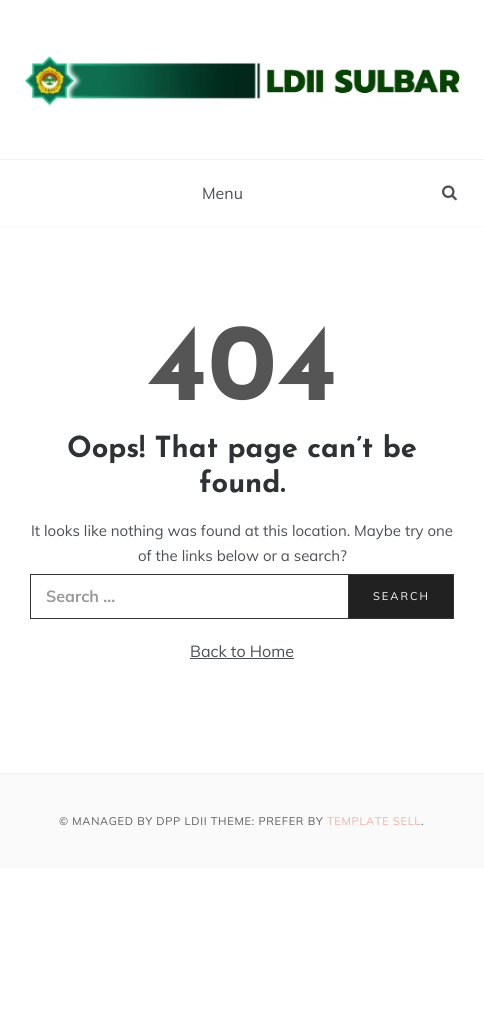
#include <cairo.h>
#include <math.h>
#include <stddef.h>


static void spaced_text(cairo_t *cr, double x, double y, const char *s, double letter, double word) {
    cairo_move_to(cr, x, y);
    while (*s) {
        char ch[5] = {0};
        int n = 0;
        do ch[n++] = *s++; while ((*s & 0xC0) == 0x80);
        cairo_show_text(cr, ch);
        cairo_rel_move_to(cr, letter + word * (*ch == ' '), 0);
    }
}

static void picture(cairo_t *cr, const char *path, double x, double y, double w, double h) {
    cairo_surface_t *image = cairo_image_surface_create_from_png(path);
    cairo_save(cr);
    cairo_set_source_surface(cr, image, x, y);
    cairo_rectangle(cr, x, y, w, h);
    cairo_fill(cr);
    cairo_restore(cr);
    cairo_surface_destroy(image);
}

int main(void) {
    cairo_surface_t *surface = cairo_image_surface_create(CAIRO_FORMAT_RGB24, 484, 1009);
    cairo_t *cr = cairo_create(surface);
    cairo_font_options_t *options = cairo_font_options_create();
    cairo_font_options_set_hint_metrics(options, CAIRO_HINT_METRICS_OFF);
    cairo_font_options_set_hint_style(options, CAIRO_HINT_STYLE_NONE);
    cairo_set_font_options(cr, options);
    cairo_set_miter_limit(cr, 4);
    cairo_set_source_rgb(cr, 1, 1, 1);
    cairo_paint(cr);
    cairo_set_source_rgb(cr, 0.98, 0.98, 0.98);
    cairo_rectangle(cr, 0, 227, 484, 1);
    cairo_fill(cr);
    cairo_set_source_rgb(cr, 0.949, 0.949, 0.949);
    cairo_rectangle(cr, 0, 159, 484, 1);
    cairo_fill(cr);
    picture(cr, "img1.png", 25, 56, 435, 50);
    cairo_select_font_face(cr, "Muli", CAIRO_FONT_SLANT_NORMAL, CAIRO_FONT_WEIGHT_NORMAL);
    cairo_set_font_size(cr, 16);
    cairo_set_source_rgb(cr, 0.298, 0.31, 0.325);
    cairo_move_to(cr, 202, 199);
    cairo_show_text(cr, "Menu");
    picture(cr, "img2.png", 442, 185, 15, 16);
    cairo_select_font_face(cr, "Josefin Sans", CAIRO_FONT_SLANT_NORMAL, CAIRO_FONT_WEIGHT_BOLD);
    cairo_set_font_size(cr, 110);
    cairo_set_source_rgb(cr, 0.333, 0.333, 0.333);
    cairo_move_to(cr, 147, 400);
    cairo_show_text(cr, "404");
    cairo_set_font_size(cr, 29);
    cairo_set_source_rgb(cr, 0.184, 0.196, 0.208);
    cairo_move_to(cr, 67, 457);
    cairo_show_text(cr, "Oops! That page can’t be");
    cairo_move_to(cr, 199, 492);
    cairo_show_text(cr, "found.");
    cairo_select_font_face(cr, "Muli", CAIRO_FONT_SLANT_NORMAL, CAIRO_FONT_WEIGHT_NORMAL);
    cairo_set_font_size(cr, 15);
    cairo_set_source_rgb(cr, 0.298, 0.31, 0.325);
    cairo_move_to(cr, 31, 536);
    cairo_show_text(cr, "It looks like nothing was found at this location. Maybe try one");
    cairo_move_to(cr, 138, 561);
    cairo_show_text(cr, "of the links below or a search?");
    cairo_set_source_rgb(cr, 0.2, 0.2, 0.2);
    cairo_rectangle(cr, 30, 574, 318, 1);
    cairo_fill(cr);
    cairo_rectangle(cr, 30, 618, 318, 1);
    cairo_fill(cr);
    cairo_rectangle(cr, 30, 574, 1, 45);
    cairo_fill(cr);
    cairo_select_font_face(cr, "Muli", CAIRO_FONT_SLANT_NORMAL, CAIRO_FONT_WEIGHT_BOLD);
    cairo_set_font_size(cr, 16);
    cairo_set_source_rgb(cr, 0.6, 0.6, 0.6);
    cairo_move_to(cr, 46, 602);
    cairo_show_text(cr, "Search …");
    cairo_set_source_rgb(cr, 0.129, 0.129, 0.129);
    cairo_rectangle(cr, 348.5, 574.5, 105, 44);
    cairo_fill_preserve(cr);
    cairo_set_source_rgb(cr, 0.2, 0.2, 0.2);
    cairo_set_line_width(cr, 1);
    cairo_stroke(cr);
    cairo_select_font_face(cr, "Muli", CAIRO_FONT_SLANT_NORMAL, CAIRO_FONT_WEIGHT_NORMAL);
    cairo_set_font_size(cr, 11);
    cairo_set_source_rgb(cr, 1, 1, 1);
    spaced_text(cr, 373, 600, "SEARCH", 2, 0);
    cairo_set_font_size(cr, 16);
    cairo_set_source_rgb(cr, 0.298, 0.31, 0.325);
    cairo_move_to(cr, 190, 657);
    cairo_show_text(cr, "Back to Home");
    cairo_rectangle(cr, 190, 658, 104, 1);
    cairo_fill(cr);
    cairo_set_source_rgb(cr, 0.98, 0.98, 0.98);
    cairo_rectangle(cr, 0, 774, 484, 94);
    cairo_fill(cr);
    cairo_set_source_rgb(cr, 0.945, 0.945, 0.945);
    cairo_rectangle(cr, 0, 773, 484, 1);
    cairo_fill(cr);
    cairo_set_font_size(cr, 11);
    cairo_set_source_rgb(cr, 0.357, 0.357, 0.357);
    spaced_text(cr, 59, 825, "© MANAGED BY DPP LDII THEME: PREFER BY", 0.7, 0);
    cairo_set_source_rgb(cr, 0.945, 0.69, 0.62);
    spaced_text(cr, 327, 825, "TEMPLATE SELL", 0.7, 0);
    cairo_set_source_rgb(cr, 0.357, 0.357, 0.357);
    spaced_text(cr, 421, 825, ".", 0.7, 0);
    cairo_surface_write_to_png(surface, "page.png");
    cairo_font_options_destroy(options);
    cairo_destroy(cr);
    cairo_surface_destroy(surface);
    return 0;
}
